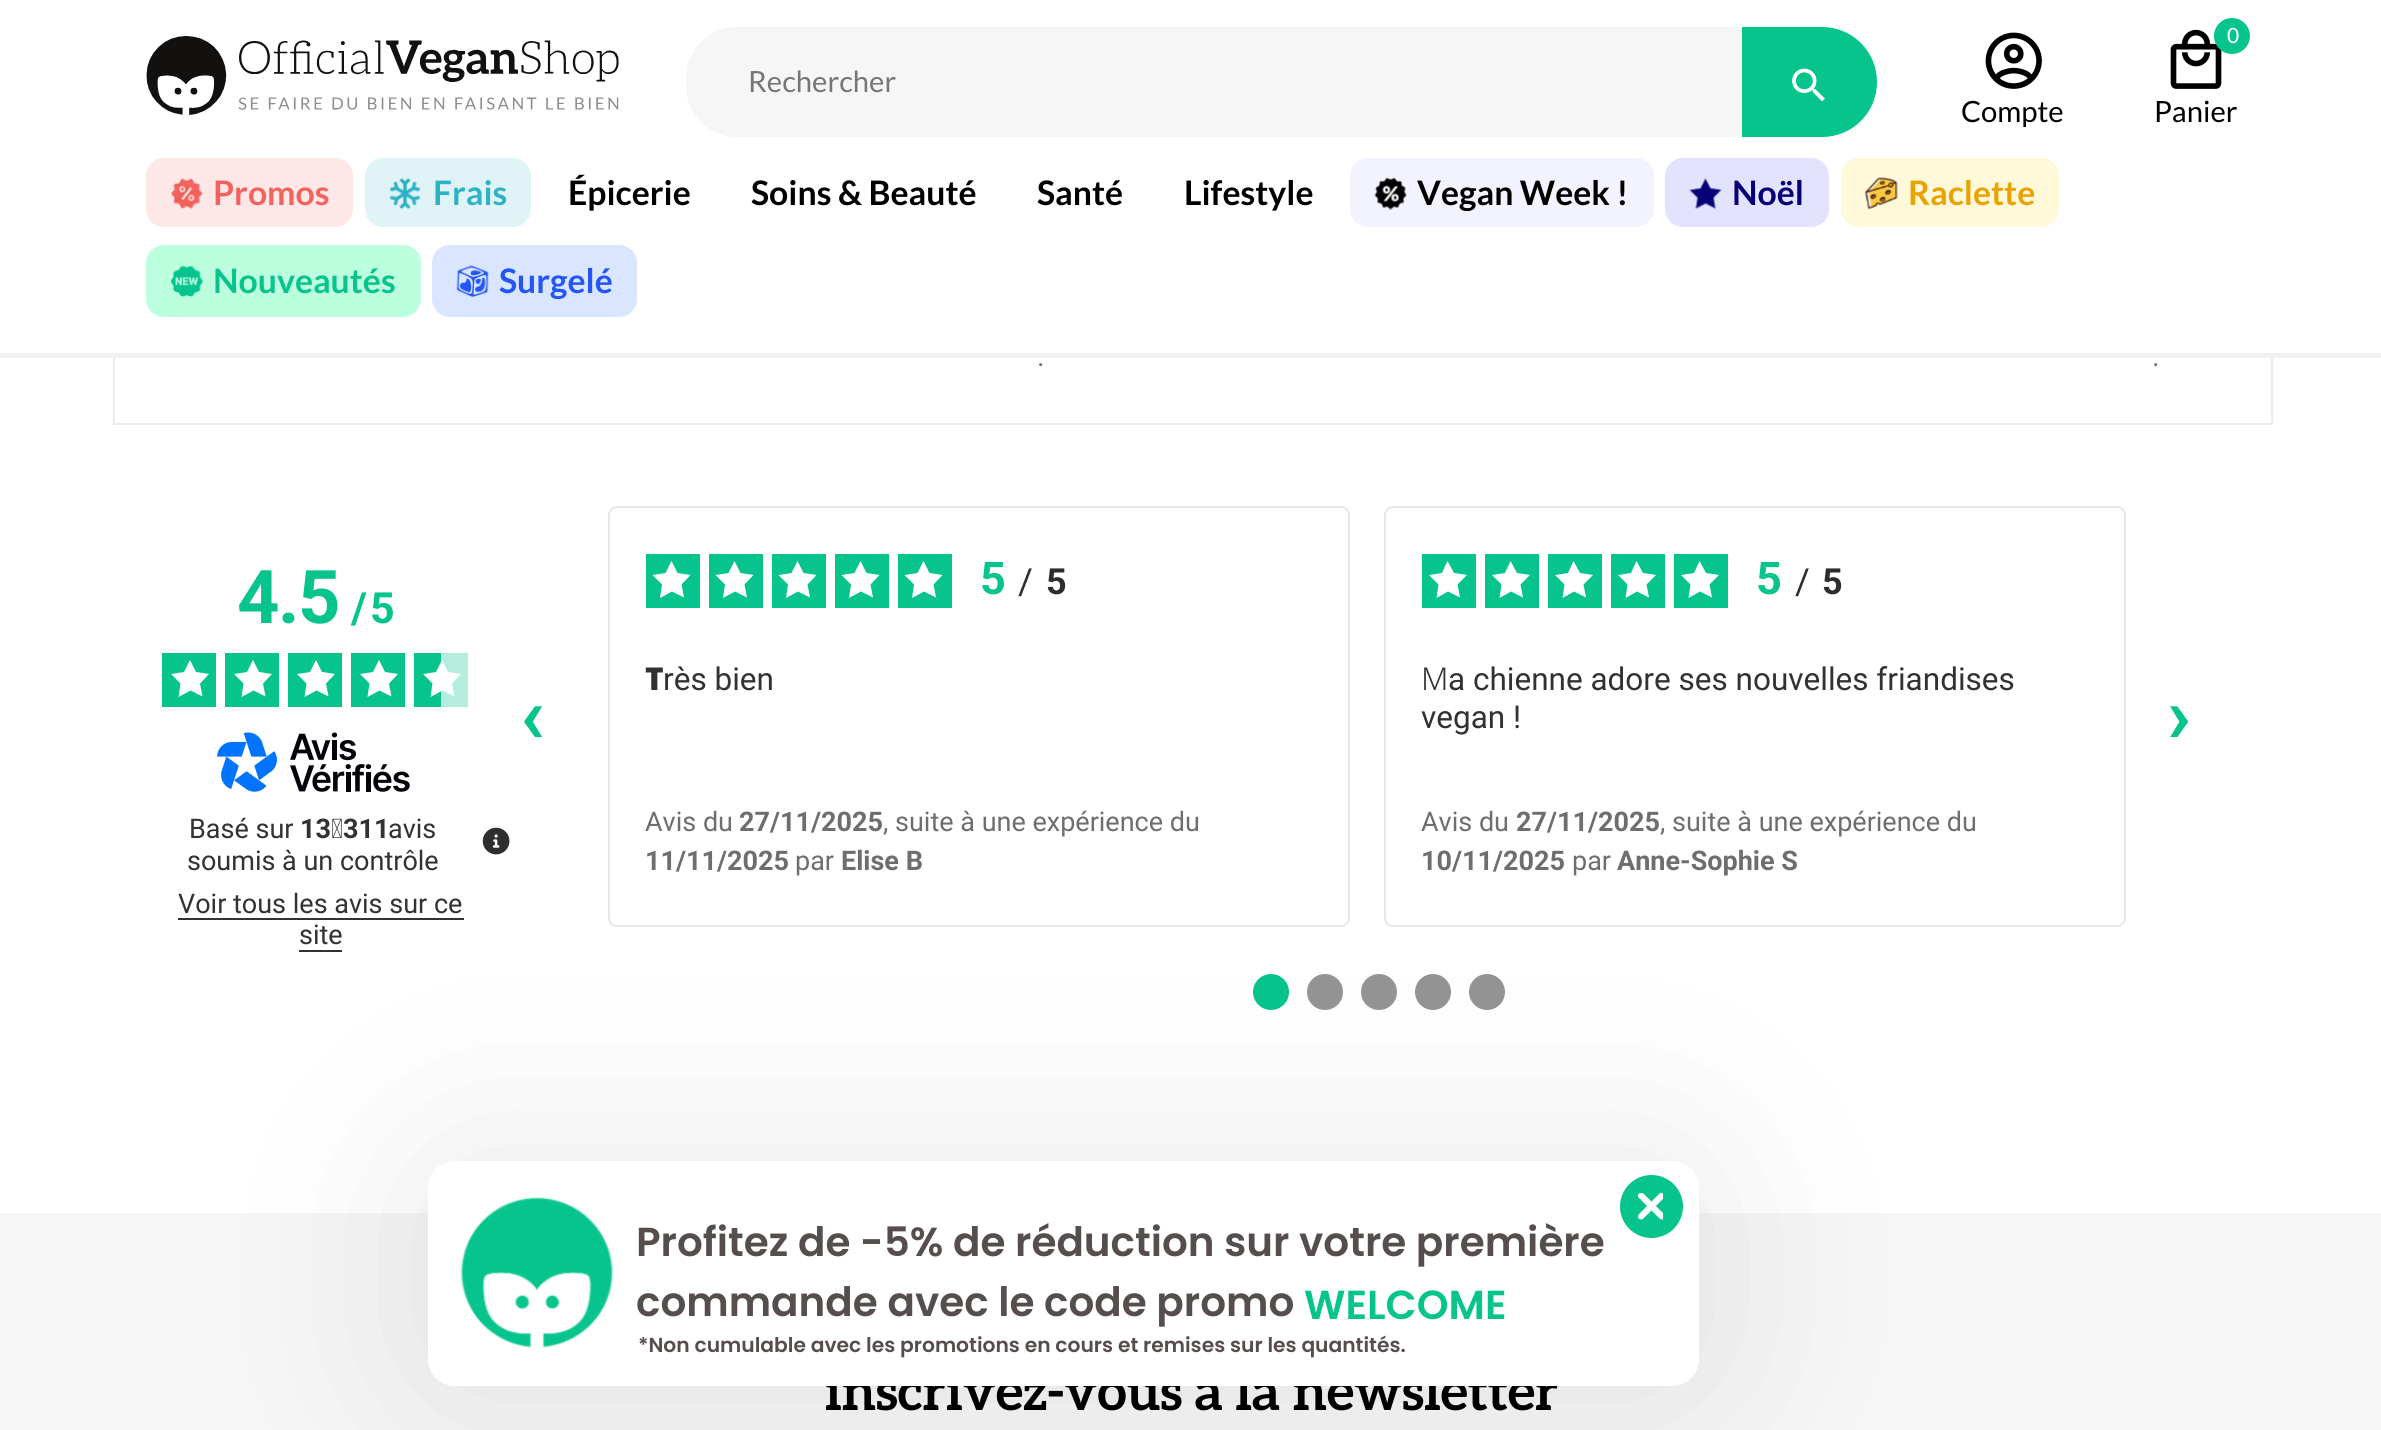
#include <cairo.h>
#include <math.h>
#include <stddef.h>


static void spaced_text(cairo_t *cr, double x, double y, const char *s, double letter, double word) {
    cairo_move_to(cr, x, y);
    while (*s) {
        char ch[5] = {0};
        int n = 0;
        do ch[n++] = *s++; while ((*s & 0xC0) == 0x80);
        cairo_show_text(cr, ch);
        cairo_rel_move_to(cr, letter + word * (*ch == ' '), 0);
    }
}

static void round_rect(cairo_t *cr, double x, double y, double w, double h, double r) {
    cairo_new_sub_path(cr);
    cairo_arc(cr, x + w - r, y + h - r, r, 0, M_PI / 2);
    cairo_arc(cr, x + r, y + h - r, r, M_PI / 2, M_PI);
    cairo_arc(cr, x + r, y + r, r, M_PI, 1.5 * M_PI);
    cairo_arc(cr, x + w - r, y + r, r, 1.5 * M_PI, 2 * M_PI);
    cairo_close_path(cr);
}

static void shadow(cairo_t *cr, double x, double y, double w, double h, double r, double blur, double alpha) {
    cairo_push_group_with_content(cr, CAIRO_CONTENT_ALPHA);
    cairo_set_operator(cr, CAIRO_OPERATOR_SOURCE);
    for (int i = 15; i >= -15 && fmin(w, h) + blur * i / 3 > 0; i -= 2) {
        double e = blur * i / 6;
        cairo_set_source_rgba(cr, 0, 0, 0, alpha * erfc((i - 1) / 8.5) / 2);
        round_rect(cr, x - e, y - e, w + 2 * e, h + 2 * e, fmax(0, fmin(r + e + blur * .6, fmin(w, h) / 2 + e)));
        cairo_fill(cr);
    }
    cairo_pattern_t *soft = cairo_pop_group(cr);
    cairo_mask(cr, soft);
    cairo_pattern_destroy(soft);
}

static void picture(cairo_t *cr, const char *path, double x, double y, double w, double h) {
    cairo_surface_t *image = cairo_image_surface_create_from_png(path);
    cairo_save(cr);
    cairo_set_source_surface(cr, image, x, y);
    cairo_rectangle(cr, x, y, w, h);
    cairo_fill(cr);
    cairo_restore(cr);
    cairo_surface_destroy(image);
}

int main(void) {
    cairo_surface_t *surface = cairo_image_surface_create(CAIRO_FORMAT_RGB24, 2381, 1430);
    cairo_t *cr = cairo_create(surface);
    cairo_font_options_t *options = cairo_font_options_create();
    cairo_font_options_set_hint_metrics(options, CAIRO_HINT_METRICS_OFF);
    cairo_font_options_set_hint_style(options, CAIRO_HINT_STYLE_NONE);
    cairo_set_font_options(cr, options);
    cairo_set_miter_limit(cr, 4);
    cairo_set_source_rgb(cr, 1, 1, 1);
    cairo_paint(cr);
    cairo_rectangle(cr, 114, 82, 2158, 342);
    cairo_set_source_rgb(cr, 0.922, 0.922, 0.922);
    cairo_stroke(cr);
    cairo_set_source_rgb(cr, 1, 1, 1);
    cairo_rectangle(cr, 113, 81, 2160, 272);
    cairo_fill(cr);
    cairo_set_source_rgb(cr, 0.945, 0.945, 0.945);
    cairo_rectangle(cr, 0, 353, 2381, 5);
    cairo_fill(cr);
    picture(cr, "img1.png", 146, 36, 473, 79);
    cairo_set_source_rgb(cr, 0.961, 0.961, 0.961);
    cairo_new_path(cr);
    cairo_move_to(cr, 736, 29.5);
    cairo_line_to(cr, 1739.5, 29.5);
    cairo_line_to(cr, 1739.5, 134.5);
    cairo_line_to(cr, 736, 134.5);
    cairo_curve_to(cr, 710, 134.5, 688.5, 113, 688.5, 87);
    cairo_line_to(cr, 688.5, 77);
    cairo_curve_to(cr, 688.5, 51, 710, 29.5, 736, 29.5);
    cairo_close_path(cr);
    cairo_fill_preserve(cr);
    cairo_set_line_width(cr, 5);
    cairo_stroke(cr);
    cairo_select_font_face(cr, "Lato", CAIRO_FONT_SLANT_NORMAL, CAIRO_FONT_WEIGHT_NORMAL);
    cairo_set_font_size(cr, 29.25);
    cairo_set_source_rgb(cr, 0.463, 0.463, 0.463);
    cairo_move_to(cr, 748, 92);
    cairo_show_text(cr, "Rechercher");
    cairo_set_source_rgb(cr, 0.024, 0.769, 0.549);
    cairo_new_path(cr);
    cairo_move_to(cr, 1742, 27);
    cairo_line_to(cr, 1822, 27);
    cairo_curve_to(cr, 1852.5, 27, 1877, 51.5, 1877, 82);
    cairo_curve_to(cr, 1877, 112.5, 1852.5, 137, 1822, 137);
    cairo_line_to(cr, 1742, 137);
    cairo_close_path(cr);
    cairo_fill(cr);
    picture(cr, "img2.png", 1792, 68, 33, 34);
    picture(cr, "img3.png", 1985, 32, 57, 57);
    cairo_set_source_rgb(cr, 0, 0, 0);
    cairo_move_to(cr, 1961, 122);
    cairo_show_text(cr, "Compte");
    picture(cr, "img4.png", 2170, 29, 52, 60);
    cairo_set_source_rgb(cr, 0.024, 0.769, 0.545);
    cairo_arc(cr, 2232, 36, 18, 0, 2 * M_PI);
    cairo_fill(cr);
    cairo_set_font_size(cr, 21);
    cairo_set_source_rgb(cr, 1, 1, 1);
    cairo_move_to(cr, 2227, 43);
    cairo_show_text(cr, "0");
    cairo_set_font_size(cr, 29.25);
    cairo_set_source_rgb(cr, 0, 0, 0);
    cairo_move_to(cr, 2154, 122);
    cairo_show_text(cr, "Panier");
    cairo_set_source_rgb(cr, 0.992, 0.91, 0.906);
    round_rect(cr, 146, 158, 207, 69, 18);
    cairo_fill(cr);
    picture(cr, "img5.png", 171, 178, 32, 31);
    cairo_select_font_face(cr, "Lato", CAIRO_FONT_SLANT_NORMAL, CAIRO_FONT_WEIGHT_BOLD);
    cairo_set_font_size(cr, 33.75);
    cairo_set_source_rgb(cr, 0.953, 0.384, 0.365);
    cairo_move_to(cr, 213, 205);
    cairo_show_text(cr, "Promos");
    cairo_set_source_rgb(cr, 0.878, 0.957, 0.965);
    round_rect(cr, 365, 158, 166, 69, 18);
    cairo_fill(cr);
    picture(cr, "img6.png", 389, 177, 32, 33);
    cairo_set_source_rgb(cr, 0.173, 0.702, 0.773);
    cairo_move_to(cr, 433, 205);
    cairo_show_text(cr, "Frais");
    cairo_set_source_rgb(cr, 0, 0, 0);
    cairo_move_to(cr, 568, 205);
    cairo_show_text(cr, "Épicerie");
    cairo_move_to(cr, 751, 205);
    cairo_show_text(cr, "Soins & Beauté");
    cairo_move_to(cr, 1037, 205);
    cairo_show_text(cr, "Santé");
    cairo_move_to(cr, 1184, 205);
    cairo_show_text(cr, "Lifestyle");
    cairo_set_source_rgb(cr, 0.953, 0.953, 1);
    round_rect(cr, 1350, 158, 304, 69, 18);
    cairo_fill(cr);
    picture(cr, "img7.png", 1374, 177, 33, 33);
    cairo_set_source_rgb(cr, 0, 0, 0);
    cairo_move_to(cr, 1417, 205);
    cairo_show_text(cr, "Vegan Week !");
    cairo_set_source_rgb(cr, 0.89, 0.886, 1);
    round_rect(cr, 1665, 158, 164, 69, 18);
    cairo_fill(cr);
    picture(cr, "img8.png", 1689, 178, 33, 31);
    cairo_set_source_rgb(cr, 0.027, 0, 0.467);
    cairo_move_to(cr, 1732, 205);
    cairo_show_text(cr, "Noël");
    cairo_set_source_rgb(cr, 1, 0.969, 0.851);
    round_rect(cr, 1841, 158, 218, 69, 18);
    cairo_fill(cr);
    picture(cr, "img9.png", 1864, 177, 34, 33);
    cairo_set_source_rgb(cr, 0.91, 0.639, 0);
    cairo_move_to(cr, 1908, 205);
    cairo_show_text(cr, "Raclette");
    cairo_set_source_rgb(cr, 0.737, 1, 0.875);
    round_rect(cr, 146, 245, 275, 72, 18);
    cairo_fill(cr);
    picture(cr, "img10.png", 171, 265, 32, 32);
    cairo_set_source_rgb(cr, 0.024, 0.769, 0.549);
    cairo_move_to(cr, 213, 293);
    cairo_show_text(cr, "Nouveautés");
    cairo_set_source_rgb(cr, 0.855, 0.898, 1);
    round_rect(cr, 432, 245, 205, 72, 18);
    cairo_fill(cr);
    picture(cr, "img11.png", 456, 265, 33, 32);
    cairo_set_source_rgb(cr, 0.137, 0.337, 0.965);
    cairo_move_to(cr, 499, 293);
    cairo_show_text(cr, "Surgelé");
    cairo_select_font_face(cr, "Lato", CAIRO_FONT_SLANT_NORMAL, CAIRO_FONT_WEIGHT_NORMAL);
    cairo_set_font_size(cr, 25);
    cairo_set_source_rgb(cr, 0.463, 0.463, 0.463);
    cairo_move_to(cr, 1038, 366);
    cairo_show_text(cr, ".");
    cairo_move_to(cr, 2153, 366);
    cairo_show_text(cr, ".");
    cairo_select_font_face(cr, "Roboto", CAIRO_FONT_SLANT_NORMAL, CAIRO_FONT_WEIGHT_BOLD);
    cairo_set_font_size(cr, 74);
    cairo_set_source_rgb(cr, 0.024, 0.769, 0.549);
    spaced_text(cr, 237, 623, "4.5", -1.5, 0);
    cairo_set_font_size(cr, 43);
    spaced_text(cr, 351, 623, "/", -1, 0);
    spaced_text(cr, 370, 623, "5", -1, 0);
    cairo_rectangle(cr, 162, 653, 54, 54);
    cairo_fill(cr);
    cairo_set_source_rgb(cr, 1, 1, 1);
    cairo_new_path(cr);
    cairo_move_to(cr, 209, 674);
    cairo_line_to(cr, 200, 683.5);
    cairo_line_to(cr, 202.5, 696.5);
    cairo_line_to(cr, 190.5, 690.5);
    cairo_line_to(cr, 178.5, 697);
    cairo_line_to(cr, 180.5, 683.5);
    cairo_line_to(cr, 171, 674);
    cairo_line_to(cr, 184, 672);
    cairo_line_to(cr, 190, 660);
    cairo_line_to(cr, 196, 672);
    cairo_close_path(cr);
    cairo_fill(cr);
    cairo_set_source_rgb(cr, 0.024, 0.769, 0.549);
    cairo_rectangle(cr, 225, 653, 54, 54);
    cairo_fill(cr);
    cairo_set_source_rgb(cr, 1, 1, 1);
    cairo_new_path(cr);
    cairo_move_to(cr, 272, 674);
    cairo_line_to(cr, 263, 683.5);
    cairo_line_to(cr, 265.5, 696.5);
    cairo_line_to(cr, 253.5, 690.5);
    cairo_line_to(cr, 241.5, 697);
    cairo_line_to(cr, 243.5, 683.5);
    cairo_line_to(cr, 234, 674);
    cairo_line_to(cr, 247, 672);
    cairo_line_to(cr, 253, 660);
    cairo_line_to(cr, 259, 672);
    cairo_close_path(cr);
    cairo_fill(cr);
    cairo_set_source_rgb(cr, 0.024, 0.769, 0.549);
    cairo_rectangle(cr, 288, 653, 54, 54);
    cairo_fill(cr);
    cairo_set_source_rgb(cr, 1, 1, 1);
    cairo_new_path(cr);
    cairo_move_to(cr, 335, 674);
    cairo_line_to(cr, 326, 683.5);
    cairo_line_to(cr, 328.5, 696.5);
    cairo_line_to(cr, 316.5, 690.5);
    cairo_line_to(cr, 304.5, 697);
    cairo_line_to(cr, 306.5, 683.5);
    cairo_line_to(cr, 297, 674);
    cairo_line_to(cr, 310, 672);
    cairo_line_to(cr, 316, 660);
    cairo_line_to(cr, 322, 672);
    cairo_close_path(cr);
    cairo_fill(cr);
    cairo_set_source_rgb(cr, 0.024, 0.769, 0.549);
    cairo_rectangle(cr, 351, 653, 54, 54);
    cairo_fill(cr);
    cairo_set_source_rgb(cr, 1, 1, 1);
    cairo_new_path(cr);
    cairo_move_to(cr, 398, 674);
    cairo_line_to(cr, 389, 683.5);
    cairo_line_to(cr, 391.5, 696.5);
    cairo_line_to(cr, 379.5, 690.5);
    cairo_line_to(cr, 367.5, 697);
    cairo_line_to(cr, 369.5, 683.5);
    cairo_line_to(cr, 360, 674);
    cairo_line_to(cr, 373, 672);
    cairo_line_to(cr, 379, 660);
    cairo_line_to(cr, 385, 672);
    cairo_close_path(cr);
    cairo_fill(cr);
    cairo_set_source_rgb(cr, 0.024, 0.769, 0.549);
    cairo_rectangle(cr, 414, 653, 27, 54);
    cairo_fill(cr);
    cairo_set_source_rgb(cr, 0.706, 0.929, 0.867);
    cairo_rectangle(cr, 441, 653, 27, 54);
    cairo_fill(cr);
    cairo_set_source_rgb(cr, 1, 1, 1);
    cairo_new_path(cr);
    cairo_move_to(cr, 461, 674);
    cairo_line_to(cr, 452, 683.5);
    cairo_line_to(cr, 454.5, 696.5);
    cairo_line_to(cr, 442.5, 690.5);
    cairo_line_to(cr, 430.5, 697);
    cairo_line_to(cr, 432.5, 683.5);
    cairo_line_to(cr, 423, 674);
    cairo_line_to(cr, 436, 672);
    cairo_line_to(cr, 442, 660);
    cairo_line_to(cr, 448, 672);
    cairo_close_path(cr);
    cairo_fill(cr);
    picture(cr, "img12.png", 217, 732, 193, 60);
    cairo_select_font_face(cr, "Roboto", CAIRO_FONT_SLANT_NORMAL, CAIRO_FONT_WEIGHT_NORMAL);
    cairo_set_font_size(cr, 27);
    cairo_set_source_rgb(cr, 0.192, 0.196, 0.208);
    cairo_move_to(cr, 189, 838);
    cairo_show_text(cr, "Basé sur");
    cairo_select_font_face(cr, "Roboto", CAIRO_FONT_SLANT_NORMAL, CAIRO_FONT_WEIGHT_BOLD);
    cairo_move_to(cr, 300, 838);
    cairo_show_text(cr, "13 311");
    cairo_select_font_face(cr, "Roboto", CAIRO_FONT_SLANT_NORMAL, CAIRO_FONT_WEIGHT_NORMAL);
    cairo_move_to(cr, 388, 838);
    cairo_show_text(cr, "avis");
    cairo_move_to(cr, 187, 870);
    cairo_show_text(cr, "soumis à un contrôle");
    picture(cr, "img13.png", 482, 827, 28, 28);
    cairo_move_to(cr, 178, 913);
    cairo_show_text(cr, "Voir tous les avis sur ce");
    cairo_move_to(cr, 299, 944);
    cairo_show_text(cr, "site");
    cairo_rectangle(cr, 178, 918, 286, 2);
    cairo_fill(cr);
    cairo_rectangle(cr, 299, 950, 43, 2);
    cairo_fill(cr);
    cairo_select_font_face(cr, "Roboto", CAIRO_FONT_SLANT_NORMAL, CAIRO_FONT_WEIGHT_BOLD);
    cairo_set_font_size(cr, 79);
    cairo_set_source_rgb(cr, 0.024, 0.769, 0.549);
    cairo_move_to(cr, 520, 742);
    cairo_show_text(cr, "‹");
    round_rect(cr, 609, 507, 740, 419, 8);
    cairo_set_source_rgb(cr, 0.906, 0.906, 0.906);
    cairo_set_line_width(cr, 2);
    cairo_stroke(cr);
    cairo_set_source_rgb(cr, 0.024, 0.769, 0.549);
    cairo_rectangle(cr, 646, 554, 54, 54);
    cairo_fill(cr);
    cairo_set_source_rgb(cr, 1, 1, 1);
    cairo_new_path(cr);
    cairo_move_to(cr, 690.5, 575);
    cairo_line_to(cr, 681.5, 584.5);
    cairo_line_to(cr, 684, 597.5);
    cairo_line_to(cr, 672, 591.5);
    cairo_line_to(cr, 660, 598);
    cairo_line_to(cr, 662, 584.5);
    cairo_line_to(cr, 652.5, 575);
    cairo_line_to(cr, 665.5, 573);
    cairo_line_to(cr, 671.5, 561);
    cairo_line_to(cr, 677.5, 573);
    cairo_close_path(cr);
    cairo_fill(cr);
    cairo_set_source_rgb(cr, 0.024, 0.769, 0.549);
    cairo_rectangle(cr, 709, 554, 54, 54);
    cairo_fill(cr);
    cairo_set_source_rgb(cr, 1, 1, 1);
    cairo_new_path(cr);
    cairo_move_to(cr, 753.5, 575);
    cairo_line_to(cr, 744.5, 584.5);
    cairo_line_to(cr, 747, 597.5);
    cairo_line_to(cr, 735, 591.5);
    cairo_line_to(cr, 723, 598);
    cairo_line_to(cr, 725, 584.5);
    cairo_line_to(cr, 715.5, 575);
    cairo_line_to(cr, 728.5, 573);
    cairo_line_to(cr, 734.5, 561);
    cairo_line_to(cr, 740.5, 573);
    cairo_close_path(cr);
    cairo_fill(cr);
    cairo_set_source_rgb(cr, 0.024, 0.769, 0.549);
    cairo_rectangle(cr, 772, 554, 54, 54);
    cairo_fill(cr);
    cairo_set_source_rgb(cr, 1, 1, 1);
    cairo_new_path(cr);
    cairo_move_to(cr, 816.5, 575);
    cairo_line_to(cr, 807.5, 584.5);
    cairo_line_to(cr, 810, 597.5);
    cairo_line_to(cr, 798, 591.5);
    cairo_line_to(cr, 786, 598);
    cairo_line_to(cr, 788, 584.5);
    cairo_line_to(cr, 778.5, 575);
    cairo_line_to(cr, 791.5, 573);
    cairo_line_to(cr, 797.5, 561);
    cairo_line_to(cr, 803.5, 573);
    cairo_close_path(cr);
    cairo_fill(cr);
    cairo_set_source_rgb(cr, 0.024, 0.769, 0.549);
    cairo_rectangle(cr, 835, 554, 54, 54);
    cairo_fill(cr);
    cairo_set_source_rgb(cr, 1, 1, 1);
    cairo_new_path(cr);
    cairo_move_to(cr, 879.5, 575);
    cairo_line_to(cr, 870.5, 584.5);
    cairo_line_to(cr, 873, 597.5);
    cairo_line_to(cr, 861, 591.5);
    cairo_line_to(cr, 849, 598);
    cairo_line_to(cr, 851, 584.5);
    cairo_line_to(cr, 841.5, 575);
    cairo_line_to(cr, 854.5, 573);
    cairo_line_to(cr, 860.5, 561);
    cairo_line_to(cr, 866.5, 573);
    cairo_close_path(cr);
    cairo_fill(cr);
    cairo_set_source_rgb(cr, 0.024, 0.769, 0.549);
    cairo_rectangle(cr, 898, 554, 54, 54);
    cairo_fill(cr);
    cairo_set_source_rgb(cr, 1, 1, 1);
    cairo_new_path(cr);
    cairo_move_to(cr, 942.5, 575);
    cairo_line_to(cr, 933.5, 584.5);
    cairo_line_to(cr, 936, 597.5);
    cairo_line_to(cr, 924, 591.5);
    cairo_line_to(cr, 912, 598);
    cairo_line_to(cr, 914, 584.5);
    cairo_line_to(cr, 904.5, 575);
    cairo_line_to(cr, 917.5, 573);
    cairo_line_to(cr, 923.5, 561);
    cairo_line_to(cr, 929.5, 573);
    cairo_close_path(cr);
    cairo_fill(cr);
    cairo_set_font_size(cr, 45);
    cairo_set_source_rgb(cr, 0.024, 0.769, 0.549);
    spaced_text(cr, 980, 594, "5", 2, 0);
    cairo_select_font_face(cr, "Roboto", CAIRO_FONT_SLANT_NORMAL, CAIRO_FONT_WEIGHT_NORMAL);
    cairo_set_font_size(cr, 36);
    cairo_set_source_rgb(cr, 0.184, 0.18, 0.18);
    spaced_text(cr, 1018, 594, "/", 2, 0);
    cairo_select_font_face(cr, "Roboto", CAIRO_FONT_SLANT_NORMAL, CAIRO_FONT_WEIGHT_BOLD);
    spaced_text(cr, 1046, 594, "5", 2, 0);
    cairo_select_font_face(cr, "Noto Sans Black", CAIRO_FONT_SLANT_NORMAL, CAIRO_FONT_WEIGHT_NORMAL);
    cairo_set_font_size(cr, 31.5);
    cairo_set_source_rgb(cr, 0.192, 0.196, 0.208);
    cairo_move_to(cr, 645, 690);
    cairo_show_text(cr, "T");
    cairo_select_font_face(cr, "Roboto", CAIRO_FONT_SLANT_NORMAL, CAIRO_FONT_WEIGHT_NORMAL);
    cairo_move_to(cr, 663, 690);
    cairo_show_text(cr, "rès bien");
    cairo_set_font_size(cr, 27);
    cairo_set_source_rgb(cr, 0.439, 0.427, 0.427);
    cairo_move_to(cr, 645, 831);
    cairo_show_text(cr, "Avis du");
    cairo_select_font_face(cr, "Roboto", CAIRO_FONT_SLANT_NORMAL, CAIRO_FONT_WEIGHT_BOLD);
    cairo_move_to(cr, 739, 831);
    cairo_show_text(cr, "27/11/2025");
    cairo_select_font_face(cr, "Roboto", CAIRO_FONT_SLANT_NORMAL, CAIRO_FONT_WEIGHT_NORMAL);
    cairo_move_to(cr, 883, 831);
    cairo_show_text(cr, ", suite à une expérience du");
    cairo_select_font_face(cr, "Roboto", CAIRO_FONT_SLANT_NORMAL, CAIRO_FONT_WEIGHT_BOLD);
    cairo_move_to(cr, 645, 870);
    cairo_show_text(cr, "11/11/2025");
    cairo_select_font_face(cr, "Roboto", CAIRO_FONT_SLANT_NORMAL, CAIRO_FONT_WEIGHT_NORMAL);
    cairo_move_to(cr, 795, 870);
    cairo_show_text(cr, "par");
    cairo_select_font_face(cr, "Roboto", CAIRO_FONT_SLANT_NORMAL, CAIRO_FONT_WEIGHT_BOLD);
    cairo_move_to(cr, 841, 870);
    cairo_show_text(cr, "Elise B");
    round_rect(cr, 1385, 507, 740, 419, 8);
    cairo_set_source_rgb(cr, 0.906, 0.906, 0.906);
    cairo_stroke(cr);
    cairo_set_source_rgb(cr, 0.024, 0.769, 0.549);
    cairo_rectangle(cr, 1422, 554, 54, 54);
    cairo_fill(cr);
    cairo_set_source_rgb(cr, 1, 1, 1);
    cairo_new_path(cr);
    cairo_move_to(cr, 1467, 575);
    cairo_line_to(cr, 1457.5, 584.5);
    cairo_line_to(cr, 1460, 597.5);
    cairo_line_to(cr, 1448, 591.5);
    cairo_line_to(cr, 1436.5, 598);
    cairo_line_to(cr, 1438.5, 584.5);
    cairo_line_to(cr, 1429, 575);
    cairo_line_to(cr, 1442, 573);
    cairo_line_to(cr, 1447.5, 561);
    cairo_line_to(cr, 1454, 573);
    cairo_close_path(cr);
    cairo_fill(cr);
    cairo_set_source_rgb(cr, 0.024, 0.769, 0.549);
    cairo_rectangle(cr, 1485, 554, 54, 54);
    cairo_fill(cr);
    cairo_set_source_rgb(cr, 1, 1, 1);
    cairo_new_path(cr);
    cairo_move_to(cr, 1530, 575);
    cairo_line_to(cr, 1520.5, 584.5);
    cairo_line_to(cr, 1523, 597.5);
    cairo_line_to(cr, 1511, 591.5);
    cairo_line_to(cr, 1499.5, 598);
    cairo_line_to(cr, 1501.5, 584.5);
    cairo_line_to(cr, 1492, 575);
    cairo_line_to(cr, 1505, 573);
    cairo_line_to(cr, 1510.5, 561);
    cairo_line_to(cr, 1517, 573);
    cairo_close_path(cr);
    cairo_fill(cr);
    cairo_set_source_rgb(cr, 0.024, 0.769, 0.549);
    cairo_rectangle(cr, 1548, 554, 54, 54);
    cairo_fill(cr);
    cairo_set_source_rgb(cr, 1, 1, 1);
    cairo_new_path(cr);
    cairo_move_to(cr, 1593, 575);
    cairo_line_to(cr, 1583.5, 584.5);
    cairo_line_to(cr, 1586, 597.5);
    cairo_line_to(cr, 1574, 591.5);
    cairo_line_to(cr, 1562.5, 598);
    cairo_line_to(cr, 1564.5, 584.5);
    cairo_line_to(cr, 1555, 575);
    cairo_line_to(cr, 1568, 573);
    cairo_line_to(cr, 1573.5, 561);
    cairo_line_to(cr, 1580, 573);
    cairo_close_path(cr);
    cairo_fill(cr);
    cairo_set_source_rgb(cr, 0.024, 0.769, 0.549);
    cairo_rectangle(cr, 1611, 554, 54, 54);
    cairo_fill(cr);
    cairo_set_source_rgb(cr, 1, 1, 1);
    cairo_new_path(cr);
    cairo_move_to(cr, 1656, 575);
    cairo_line_to(cr, 1646.5, 584.5);
    cairo_line_to(cr, 1649, 597.5);
    cairo_line_to(cr, 1637, 591.5);
    cairo_line_to(cr, 1625.5, 598);
    cairo_line_to(cr, 1627.5, 584.5);
    cairo_line_to(cr, 1618, 575);
    cairo_line_to(cr, 1631, 573);
    cairo_line_to(cr, 1636.5, 561);
    cairo_line_to(cr, 1643, 573);
    cairo_close_path(cr);
    cairo_fill(cr);
    cairo_set_source_rgb(cr, 0.024, 0.769, 0.549);
    cairo_rectangle(cr, 1674, 554, 54, 54);
    cairo_fill(cr);
    cairo_set_source_rgb(cr, 1, 1, 1);
    cairo_new_path(cr);
    cairo_move_to(cr, 1719, 575);
    cairo_line_to(cr, 1709.5, 584.5);
    cairo_line_to(cr, 1712, 597.5);
    cairo_line_to(cr, 1700, 591.5);
    cairo_line_to(cr, 1688.5, 598);
    cairo_line_to(cr, 1690.5, 584.5);
    cairo_line_to(cr, 1681, 575);
    cairo_line_to(cr, 1694, 573);
    cairo_line_to(cr, 1699.5, 561);
    cairo_line_to(cr, 1706, 573);
    cairo_close_path(cr);
    cairo_fill(cr);
    cairo_set_font_size(cr, 45);
    cairo_set_source_rgb(cr, 0.024, 0.769, 0.549);
    spaced_text(cr, 1756, 594, "5", 2, 0);
    cairo_select_font_face(cr, "Roboto", CAIRO_FONT_SLANT_NORMAL, CAIRO_FONT_WEIGHT_NORMAL);
    cairo_set_font_size(cr, 36);
    cairo_set_source_rgb(cr, 0.184, 0.18, 0.18);
    spaced_text(cr, 1795, 594, "/", 2, 0);
    cairo_select_font_face(cr, "Roboto", CAIRO_FONT_SLANT_NORMAL, CAIRO_FONT_WEIGHT_BOLD);
    spaced_text(cr, 1822, 594, "5", 2, 0);
    cairo_select_font_face(cr, "Noto Sans Light", CAIRO_FONT_SLANT_NORMAL, CAIRO_FONT_WEIGHT_NORMAL);
    cairo_set_font_size(cr, 31.5);
    cairo_set_source_rgb(cr, 0.192, 0.196, 0.208);
    cairo_move_to(cr, 1421, 690);
    cairo_show_text(cr, "M");
    cairo_select_font_face(cr, "Roboto", CAIRO_FONT_SLANT_NORMAL, CAIRO_FONT_WEIGHT_NORMAL);
    cairo_move_to(cr, 1448, 690);
    cairo_show_text(cr, "a chienne adore ses nouvelles friandises");
    cairo_move_to(cr, 1421, 728);
    cairo_show_text(cr, "vegan !");
    cairo_set_font_size(cr, 27);
    cairo_set_source_rgb(cr, 0.439, 0.427, 0.427);
    cairo_move_to(cr, 1421, 831);
    cairo_show_text(cr, "Avis du");
    cairo_select_font_face(cr, "Roboto", CAIRO_FONT_SLANT_NORMAL, CAIRO_FONT_WEIGHT_BOLD);
    cairo_move_to(cr, 1516, 831);
    cairo_show_text(cr, "27/11/2025");
    cairo_select_font_face(cr, "Roboto", CAIRO_FONT_SLANT_NORMAL, CAIRO_FONT_WEIGHT_NORMAL);
    cairo_move_to(cr, 1660, 831);
    cairo_show_text(cr, ", suite à une expérience du");
    cairo_select_font_face(cr, "Roboto", CAIRO_FONT_SLANT_NORMAL, CAIRO_FONT_WEIGHT_BOLD);
    cairo_move_to(cr, 1421, 870);
    cairo_show_text(cr, "10/11/2025");
    cairo_select_font_face(cr, "Roboto", CAIRO_FONT_SLANT_NORMAL, CAIRO_FONT_WEIGHT_NORMAL);
    cairo_move_to(cr, 1572, 870);
    cairo_show_text(cr, "par");
    cairo_select_font_face(cr, "Roboto", CAIRO_FONT_SLANT_NORMAL, CAIRO_FONT_WEIGHT_BOLD);
    cairo_move_to(cr, 1617, 870);
    cairo_show_text(cr, "Anne-Sophie S");
    cairo_set_font_size(cr, 79);
    cairo_set_source_rgb(cr, 0.024, 0.769, 0.549);
    cairo_move_to(cr, 2167, 742);
    cairo_show_text(cr, "›");
    cairo_new_path(cr);
    cairo_arc(cr, 1271, 992, 18, 0, 2 * M_PI);
    cairo_fill(cr);
    cairo_set_source_rgb(cr, 0.58, 0.58, 0.58);
    cairo_arc(cr, 1325, 992, 18, 0, 2 * M_PI);
    cairo_fill(cr);
    cairo_arc(cr, 1379, 992, 18, 0, 2 * M_PI);
    cairo_fill(cr);
    cairo_arc(cr, 1433, 992, 18, 0, 2 * M_PI);
    cairo_fill(cr);
    cairo_arc(cr, 1487, 992, 18, 0, 2 * M_PI);
    cairo_fill(cr);
    cairo_set_source_rgb(cr, 0.961, 0.961, 0.961);
    cairo_rectangle(cr, 0, 1213, 2381, 217);
    cairo_fill(cr);
    cairo_select_font_face(cr, "Aleo", CAIRO_FONT_SLANT_NORMAL, CAIRO_FONT_WEIGHT_BOLD);
    cairo_set_font_size(cr, 54);
    cairo_set_source_rgb(cr, 0, 0, 0);
    cairo_move_to(cr, 825, 1410);
    cairo_show_text(cr, "inscrivez-vous à la newsletter");
    cairo_set_source_rgb(cr, 0, 0, 0);
    shadow(cr, 428, 1161, 1271, 225, 27, 101, 0.1);
    cairo_set_source_rgb(cr, 1, 1, 1);
    round_rect(cr, 428, 1161, 1271, 225, 27);
    cairo_fill(cr);
    picture(cr, "img14.png", 460, 1197, 154, 151);
    cairo_select_font_face(cr, "Poppins SemiBold", CAIRO_FONT_SLANT_NORMAL, CAIRO_FONT_WEIGHT_NORMAL);
    cairo_set_font_size(cr, 40.5);
    cairo_set_source_rgb(cr, 0.337, 0.302, 0.302);
    cairo_move_to(cr, 636, 1256);
    cairo_show_text(cr, "Profitez de -5% de réduction sur votre première");
    cairo_move_to(cr, 636, 1316);
    cairo_show_text(cr, "commande avec le code promo");
    cairo_set_source_rgb(cr, 0.024, 0.769, 0.549);
    cairo_new_path(cr);
    cairo_arc(cr, 1651.5, 1206.5, 31.5, 0, 2 * M_PI);
    cairo_fill(cr);
    picture(cr, "img15.png", 1638, 1193, 25, 27);
    cairo_move_to(cr, 1304, 1319);
    cairo_show_text(cr, "WELCOME");
    cairo_set_font_size(cr, 20.25);
    cairo_set_source_rgb(cr, 0.337, 0.302, 0.302);
    cairo_move_to(cr, 638, 1352);
    cairo_show_text(cr, "*Non cumulable avec les promotions en cours et remises sur les quantités.");
    cairo_surface_write_to_png(surface, "page.png");
    cairo_font_options_destroy(options);
    cairo_destroy(cr);
    cairo_surface_destroy(surface);
    return 0;
}
